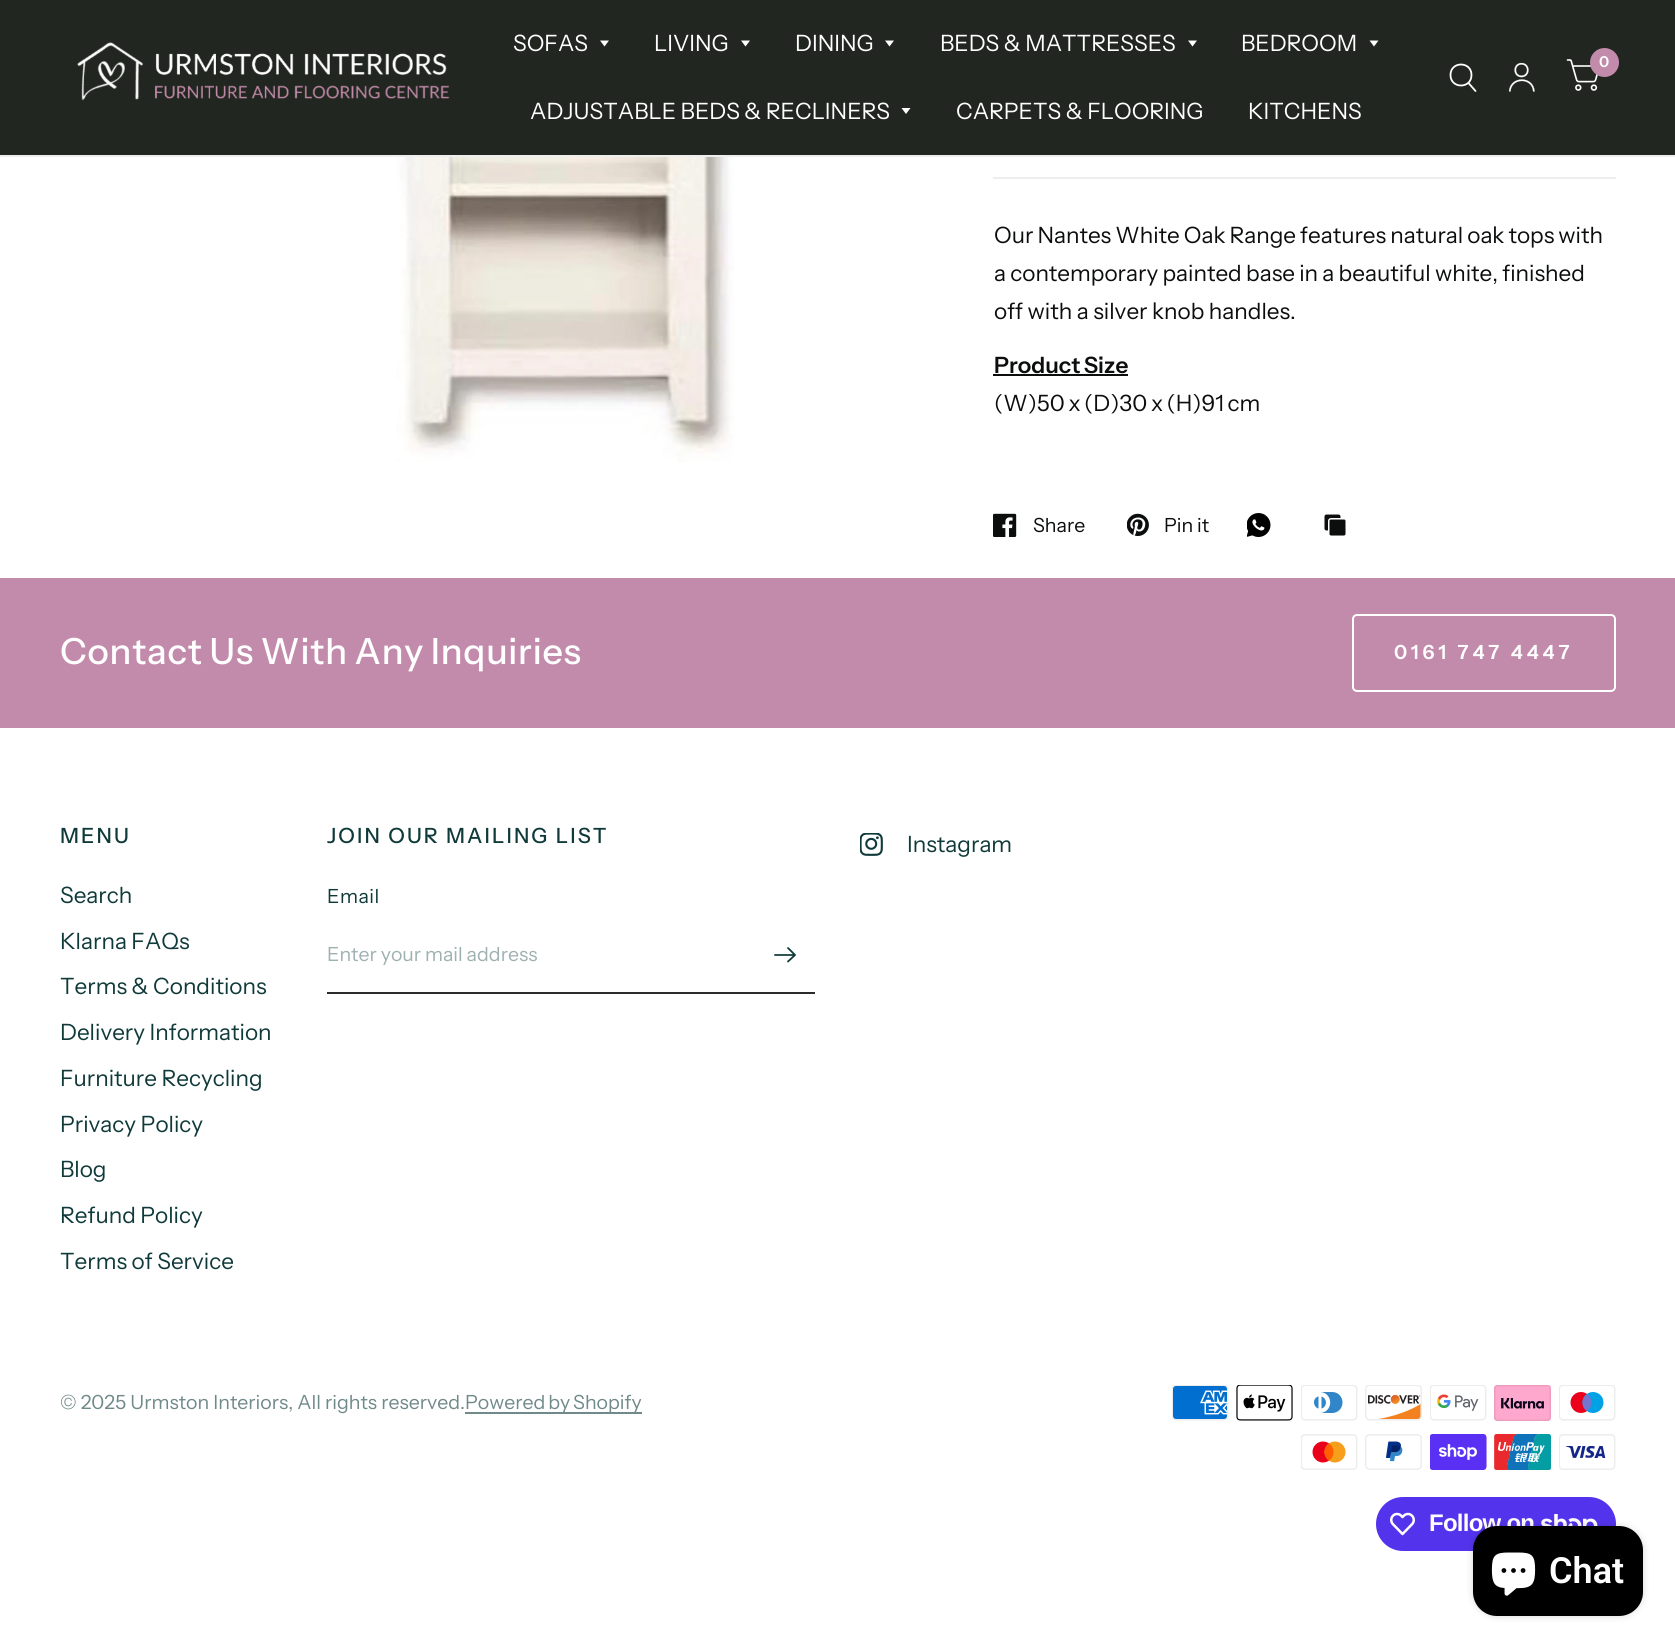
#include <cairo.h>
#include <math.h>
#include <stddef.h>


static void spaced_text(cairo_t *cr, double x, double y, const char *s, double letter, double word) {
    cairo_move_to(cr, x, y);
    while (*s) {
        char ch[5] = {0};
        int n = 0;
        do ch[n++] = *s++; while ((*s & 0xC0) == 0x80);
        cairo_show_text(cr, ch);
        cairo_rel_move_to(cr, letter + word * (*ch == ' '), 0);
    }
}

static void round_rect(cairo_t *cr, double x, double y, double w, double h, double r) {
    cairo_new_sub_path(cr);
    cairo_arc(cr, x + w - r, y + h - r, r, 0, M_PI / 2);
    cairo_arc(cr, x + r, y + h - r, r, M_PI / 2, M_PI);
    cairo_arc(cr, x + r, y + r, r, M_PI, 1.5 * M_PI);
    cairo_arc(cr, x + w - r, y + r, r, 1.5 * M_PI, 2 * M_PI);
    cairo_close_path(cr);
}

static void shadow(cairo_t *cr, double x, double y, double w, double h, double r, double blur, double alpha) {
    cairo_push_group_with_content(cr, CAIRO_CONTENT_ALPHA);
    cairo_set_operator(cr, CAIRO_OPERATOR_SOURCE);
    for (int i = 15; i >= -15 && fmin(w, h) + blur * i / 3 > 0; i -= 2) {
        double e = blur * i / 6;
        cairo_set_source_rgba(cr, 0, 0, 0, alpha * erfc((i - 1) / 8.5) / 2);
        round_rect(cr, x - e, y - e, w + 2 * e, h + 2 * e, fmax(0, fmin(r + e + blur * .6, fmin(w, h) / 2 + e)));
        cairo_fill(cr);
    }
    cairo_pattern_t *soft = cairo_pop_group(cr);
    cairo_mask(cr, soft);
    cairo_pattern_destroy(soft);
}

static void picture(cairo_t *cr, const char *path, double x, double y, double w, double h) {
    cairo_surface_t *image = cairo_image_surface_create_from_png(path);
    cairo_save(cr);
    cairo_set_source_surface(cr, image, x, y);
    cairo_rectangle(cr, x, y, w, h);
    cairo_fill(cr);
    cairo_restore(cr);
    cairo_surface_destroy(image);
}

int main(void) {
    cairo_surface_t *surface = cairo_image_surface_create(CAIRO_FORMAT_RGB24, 1675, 1646);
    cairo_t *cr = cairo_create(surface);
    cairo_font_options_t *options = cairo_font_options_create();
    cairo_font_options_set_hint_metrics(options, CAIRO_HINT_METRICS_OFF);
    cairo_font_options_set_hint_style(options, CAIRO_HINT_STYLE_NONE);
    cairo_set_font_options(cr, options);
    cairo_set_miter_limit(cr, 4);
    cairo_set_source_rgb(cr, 1, 1, 1);
    cairo_paint(cr);
    cairo_set_source_rgb(cr, 0.129, 0.153, 0.125);
    cairo_rectangle(cr, 0, 0, 1675, 155);
    cairo_fill(cr);
    cairo_set_source_rgb(cr, 0.933, 0.933, 0.933);
    cairo_rectangle(cr, 0, 155, 1675, 2);
    cairo_fill(cr);
    picture(cr, "img1.png", 77, 42, 373, 59);
    cairo_select_font_face(cr, "Instrument Sans", CAIRO_FONT_SLANT_NORMAL, CAIRO_FONT_WEIGHT_NORMAL);
    cairo_set_font_size(cr, 22.5);
    cairo_set_source_rgb(cr, 1, 1, 1);
    cairo_move_to(cr, 513, 51);
    cairo_show_text(cr, "SOFAS");
    cairo_new_path(cr);
    cairo_move_to(cr, 600, 40.5);
    cairo_line_to(cr, 609, 40.5);
    cairo_line_to(cr, 604.5, 46.5);
    cairo_close_path(cr);
    cairo_fill(cr);
    cairo_move_to(cr, 654, 51);
    cairo_show_text(cr, "LIVING");
    cairo_new_path(cr);
    cairo_move_to(cr, 741, 40.5);
    cairo_line_to(cr, 750, 40.5);
    cairo_line_to(cr, 745.5, 46.5);
    cairo_close_path(cr);
    cairo_fill(cr);
    cairo_move_to(cr, 795, 51);
    cairo_show_text(cr, "DINING");
    cairo_new_path(cr);
    cairo_move_to(cr, 885, 40.5);
    cairo_line_to(cr, 894, 40.5);
    cairo_line_to(cr, 889.5, 46.5);
    cairo_close_path(cr);
    cairo_fill(cr);
    cairo_move_to(cr, 940, 51);
    cairo_show_text(cr, "BEDS & MATTRESSES");
    cairo_new_path(cr);
    cairo_move_to(cr, 1188, 40.5);
    cairo_line_to(cr, 1197, 40.5);
    cairo_line_to(cr, 1192.5, 46.5);
    cairo_close_path(cr);
    cairo_fill(cr);
    cairo_move_to(cr, 1241, 51);
    cairo_show_text(cr, "BEDROOM");
    cairo_new_path(cr);
    cairo_move_to(cr, 1369.5, 40.5);
    cairo_line_to(cr, 1378.5, 40.5);
    cairo_line_to(cr, 1374, 46.5);
    cairo_close_path(cr);
    cairo_fill(cr);
    cairo_move_to(cr, 530, 119);
    cairo_show_text(cr, "ADJUSTABLE BEDS & RECLINERS");
    cairo_new_path(cr);
    cairo_move_to(cr, 901.5, 108);
    cairo_line_to(cr, 910.5, 108);
    cairo_line_to(cr, 906, 114);
    cairo_close_path(cr);
    cairo_fill(cr);
    cairo_move_to(cr, 956, 119);
    cairo_show_text(cr, "CARPETS & FLOORING");
    cairo_move_to(cr, 1248, 119);
    cairo_show_text(cr, "KITCHENS");
    cairo_new_path(cr);
    cairo_move_to(cr, 1468.5, 83);
    cairo_line_to(cr, 1475.5, 91);
    cairo_move_to(cr, 1471.5, 75);
    cairo_curve_to(cr, 1471.5, 89, 1450.5, 89, 1450.5, 75);
    cairo_curve_to(cr, 1450.5, 61, 1471.5, 61, 1471.5, 75);
    cairo_close_path(cr);
    cairo_set_line_width(cr, 1.8);
    cairo_set_line_cap(cr, CAIRO_LINE_CAP_ROUND);
    cairo_set_line_join(cr, CAIRO_LINE_JOIN_ROUND);
    cairo_stroke(cr);
    picture(cr, "img2.png", 1508, 62, 27, 30);
    picture(cr, "img3.png", 1566, 59, 32, 32);
    cairo_set_source_rgb(cr, 0.765, 0.545, 0.671);
    cairo_arc(cr, 1604.5, 62.5, 14.5, 0, 2 * M_PI);
    cairo_fill(cr);
    cairo_select_font_face(cr, "Instrument Sans SemiBold", CAIRO_FONT_SLANT_NORMAL, CAIRO_FONT_WEIGHT_NORMAL);
    cairo_set_font_size(cr, 15);
    cairo_set_source_rgb(cr, 1, 1, 1);
    cairo_move_to(cr, 1599, 67);
    cairo_show_text(cr, "0");
    picture(cr, "img4.png", 396, 157, 338, 305);
    cairo_set_source_rgb(cr, 0.933, 0.933, 0.933);
    cairo_rectangle(cr, 993, 177, 623, 2);
    cairo_fill(cr);
    cairo_select_font_face(cr, "Instrument Sans", CAIRO_FONT_SLANT_NORMAL, CAIRO_FONT_WEIGHT_NORMAL);
    cairo_set_font_size(cr, 22.5);
    cairo_set_source_rgb(cr, 0.047, 0.051, 0.051);
    spaced_text(cr, 994, 243, "Our Nantes White Oak Range features natural oak tops with", 0, -0.5);
    spaced_text(cr, 994, 281, "a contemporary painted base in a beautiful white, finished", 0, -0.25);
    cairo_move_to(cr, 994, 319);
    cairo_show_text(cr, "off with a silver knob handles.");
    cairo_select_font_face(cr, "Instrument Sans SemiBold", CAIRO_FONT_SLANT_NORMAL, CAIRO_FONT_WEIGHT_NORMAL);
    spaced_text(cr, 994, 373, "Product Size", 0, -1);
    cairo_rectangle(cr, 993, 374, 135, 2);
    cairo_fill(cr);
    cairo_select_font_face(cr, "Instrument Sans", CAIRO_FONT_SLANT_NORMAL, CAIRO_FONT_WEIGHT_NORMAL);
    spaced_text(cr, 994, 411, "(W)50 x (D)30 x (H)91 cm", 0, -1);
    picture(cr, "img5.png", 993, 513, 24, 24);
    cairo_set_font_size(cr, 19.5);
    cairo_move_to(cr, 1033, 532);
    cairo_show_text(cr, "Share");
    picture(cr, "img6.png", 1127, 513, 22, 23);
    cairo_move_to(cr, 1164, 532);
    cairo_show_text(cr, "Pin it");
    picture(cr, "img7.png", 1247, 513, 24, 24);
    picture(cr, "img8.png", 1324, 514, 22, 22);
    cairo_set_source_rgb(cr, 0.765, 0.545, 0.671);
    cairo_rectangle(cr, 0, 578, 1675, 150);
    cairo_fill(cr);
    cairo_select_font_face(cr, "Instrument Sans Medium", CAIRO_FONT_SLANT_NORMAL, CAIRO_FONT_WEIGHT_NORMAL);
    cairo_set_font_size(cr, 36);
    cairo_set_source_rgb(cr, 1, 1, 1);
    spaced_text(cr, 60, 664, "Contact Us With Any Inquiries", 0.75, -1);
    round_rect(cr, 1353, 615, 262, 76, 4);
    cairo_set_line_width(cr, 2);
    cairo_set_line_cap(cr, CAIRO_LINE_CAP_BUTT);
    cairo_set_line_join(cr, CAIRO_LINE_JOIN_MITER);
    cairo_stroke(cr);
    cairo_select_font_face(cr, "Instrument Sans SemiBold", CAIRO_FONT_SLANT_NORMAL, CAIRO_FONT_WEIGHT_NORMAL);
    cairo_set_font_size(cr, 19.5);
    spaced_text(cr, 1394, 659, "0161 747 4447", 3.9, 0);
    cairo_select_font_face(cr, "Instrument Sans Medium", CAIRO_FONT_SLANT_NORMAL, CAIRO_FONT_WEIGHT_NORMAL);
    cairo_set_font_size(cr, 21);
    cairo_set_source_rgb(cr, 0.063, 0.227, 0.227);
    spaced_text(cr, 60, 843, "MENU", 2.1, 0);
    cairo_select_font_face(cr, "Instrument Sans", CAIRO_FONT_SLANT_NORMAL, CAIRO_FONT_WEIGHT_NORMAL);
    cairo_set_font_size(cr, 22.5);
    cairo_move_to(cr, 60, 903);
    cairo_show_text(cr, "Search");
    cairo_move_to(cr, 60, 949);
    cairo_show_text(cr, "Klarna FAQs");
    cairo_move_to(cr, 60, 994);
    cairo_show_text(cr, "Terms & Conditions");
    cairo_move_to(cr, 60, 1040);
    cairo_show_text(cr, "Delivery Information");
    cairo_move_to(cr, 60, 1086);
    cairo_show_text(cr, "Furniture Recycling");
    cairo_move_to(cr, 60, 1132);
    cairo_show_text(cr, "Privacy Policy");
    cairo_move_to(cr, 60, 1177);
    cairo_show_text(cr, "Blog");
    cairo_move_to(cr, 60, 1223);
    cairo_show_text(cr, "Refund Policy");
    cairo_move_to(cr, 60, 1269);
    cairo_show_text(cr, "Terms of Service");
    cairo_select_font_face(cr, "Instrument Sans Medium", CAIRO_FONT_SLANT_NORMAL, CAIRO_FONT_WEIGHT_NORMAL);
    cairo_set_font_size(cr, 21);
    spaced_text(cr, 327, 843, "JOIN OUR MAILING LIST", 2.1, 0);
    cairo_select_font_face(cr, "Instrument Sans", CAIRO_FONT_SLANT_NORMAL, CAIRO_FONT_WEIGHT_NORMAL);
    cairo_set_font_size(cr, 19.5);
    spaced_text(cr, 327, 903, "Email", 0.5, 0);
    cairo_set_source_rgb(cr, 0.169, 0.169, 0.169);
    cairo_rectangle(cr, 327, 992, 488, 2);
    cairo_fill(cr);
    cairo_set_source_rgb(cr, 0.624, 0.69, 0.69);
    cairo_move_to(cr, 327, 961);
    cairo_show_text(cr, "Enter your mail address");
    cairo_new_path(cr);
    cairo_move_to(cr, 775, 955);
    cairo_line_to(cr, 793, 955);
    cairo_move_to(cr, 788, 948);
    cairo_line_to(cr, 795, 955);
    cairo_line_to(cr, 788, 961.5);
    cairo_set_source_rgb(cr, 0.063, 0.227, 0.227);
    cairo_set_line_width(cr, 1.8);
    cairo_set_line_cap(cr, CAIRO_LINE_CAP_ROUND);
    cairo_set_line_join(cr, CAIRO_LINE_JOIN_ROUND);
    cairo_stroke(cr);
    picture(cr, "img9.png", 860, 833, 23, 23);
    cairo_set_font_size(cr, 22.5);
    cairo_move_to(cr, 907, 852);
    cairo_show_text(cr, "Instagram");
    cairo_set_font_size(cr, 19.5);
    cairo_set_source_rgb(cr, 0.439, 0.537, 0.537);
    spaced_text(cr, 60, 1409, "© 2025 Urmston Interiors, All rights reserved.", 0, 0.25);
    cairo_rectangle(cr, 465, 1412, 177, 2);
    cairo_fill(cr);
    spaced_text(cr, 465, 1409, "Powered by Shopify", 0, -1);
    picture(cr, "img10.png", 1172, 1385, 57, 36);
    picture(cr, "img11.png", 1236, 1385, 57, 36);
    picture(cr, "img12.png", 1301, 1385, 57, 36);
    picture(cr, "img13.png", 1365, 1385, 57, 36);
    picture(cr, "img14.png", 1430, 1385, 57, 36);
    picture(cr, "img15.png", 1494, 1385, 57, 36);
    picture(cr, "img16.png", 1559, 1385, 57, 36);
    picture(cr, "img17.png", 1301, 1434, 57, 36);
    picture(cr, "img18.png", 1365, 1434, 57, 36);
    picture(cr, "img19.png", 1430, 1434, 57, 36);
    picture(cr, "img20.png", 1494, 1434, 57, 36);
    picture(cr, "img21.png", 1559, 1434, 57, 36);
    cairo_set_source_rgb(cr, 0.329, 0.2, 0.922);
    round_rect(cr, 1376, 1497, 240, 54, 27);
    cairo_fill(cr);
    picture(cr, "img22.png", 1390, 1512, 25, 24);
    cairo_select_font_face(cr, "Liberation Sans", CAIRO_FONT_SLANT_NORMAL, CAIRO_FONT_WEIGHT_BOLD);
    cairo_set_font_size(cr, 24);
    cairo_set_source_rgb(cr, 1, 1, 1);
    spaced_text(cr, 1429, 1531, "Follow on", -0.75, 0);
    picture(cr, "img23.png", 1541, 1514, 57, 12);
    cairo_set_source_rgb(cr, 0, 0, 0);
    shadow(cr, 1473, 1526, 170, 90, 24, 4, 0.15);
    cairo_set_source_rgb(cr, 0, 0, 0);
    round_rect(cr, 1473, 1526, 170, 90, 24);
    cairo_fill(cr);
    picture(cr, "img24.png", 1491, 1552, 45, 44);
    cairo_select_font_face(cr, "Roboto SemiBold", CAIRO_FONT_SLANT_NORMAL, CAIRO_FONT_WEIGHT_NORMAL);
    cairo_set_font_size(cr, 36);
    cairo_set_source_rgb(cr, 1, 1, 1);
    cairo_move_to(cr, 1549, 1583);
    cairo_show_text(cr, "Chat");
    cairo_surface_write_to_png(surface, "page.png");
    cairo_font_options_destroy(options);
    cairo_destroy(cr);
    cairo_surface_destroy(surface);
    return 0;
}
